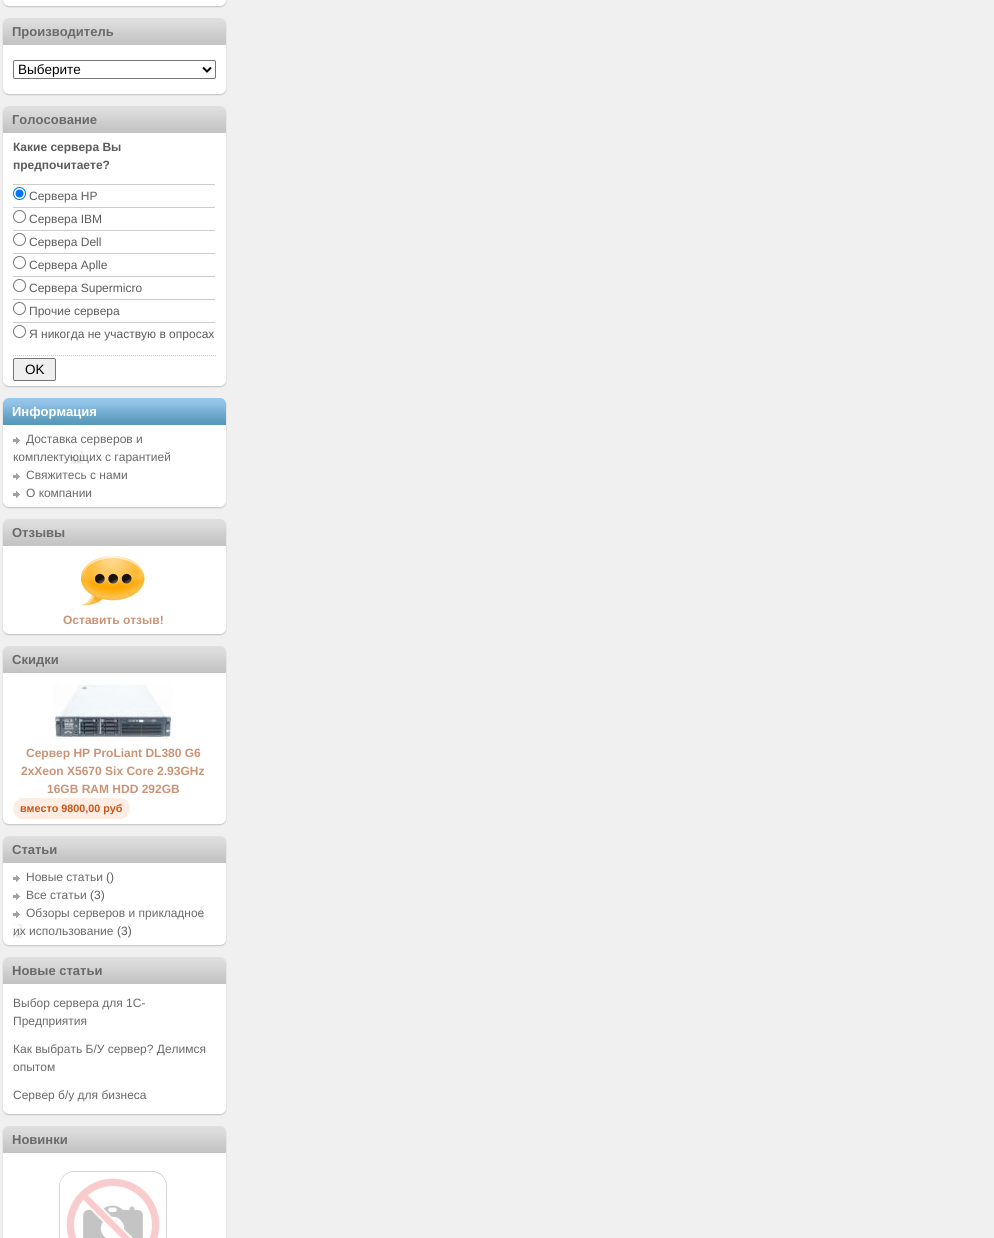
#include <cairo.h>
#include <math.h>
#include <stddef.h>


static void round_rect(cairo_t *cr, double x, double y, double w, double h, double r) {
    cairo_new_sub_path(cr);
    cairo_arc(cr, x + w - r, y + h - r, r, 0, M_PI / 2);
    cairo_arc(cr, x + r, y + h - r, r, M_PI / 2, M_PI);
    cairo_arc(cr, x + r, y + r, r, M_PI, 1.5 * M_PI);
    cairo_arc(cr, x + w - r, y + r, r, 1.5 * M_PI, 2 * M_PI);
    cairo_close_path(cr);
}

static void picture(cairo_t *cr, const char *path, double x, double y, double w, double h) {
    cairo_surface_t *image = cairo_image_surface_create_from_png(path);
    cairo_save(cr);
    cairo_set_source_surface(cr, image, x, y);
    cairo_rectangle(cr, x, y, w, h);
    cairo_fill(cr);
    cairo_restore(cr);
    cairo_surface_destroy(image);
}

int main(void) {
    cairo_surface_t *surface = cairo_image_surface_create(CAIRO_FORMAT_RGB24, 994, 1238);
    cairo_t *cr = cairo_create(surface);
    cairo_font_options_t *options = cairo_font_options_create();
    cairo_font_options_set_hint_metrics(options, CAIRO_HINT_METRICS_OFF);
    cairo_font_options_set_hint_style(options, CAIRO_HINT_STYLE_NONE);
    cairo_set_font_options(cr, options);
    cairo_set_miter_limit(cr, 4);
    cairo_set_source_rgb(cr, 0.941, 0.941, 0.941);
    cairo_paint(cr);
    cairo_set_source_rgb(cr, 1, 1, 1);
    cairo_rectangle(cr, 2, 0, 225, 1);
    cairo_fill(cr);
    cairo_set_source_rgb(cr, 0.894, 0.894, 0.894);
    cairo_rectangle(cr, 226, 0, 1, 1);
    cairo_fill(cr);
    cairo_rectangle(cr, 2, 0, 1, 1);
    cairo_fill(cr);
    picture(cr, "img1.png", 2, 1, 225, 7);
    picture(cr, "img2.png", 2, 18, 225, 27);
    cairo_select_font_face(cr, "Liberation Sans", CAIRO_FONT_SLANT_NORMAL, CAIRO_FONT_WEIGHT_BOLD);
    cairo_set_font_size(cr, 13);
    cairo_set_source_rgb(cr, 0.412, 0.412, 0.412);
    cairo_move_to(cr, 12, 36);
    cairo_show_text(cr, "Производитель");
    cairo_set_source_rgb(cr, 1, 1, 1);
    cairo_rectangle(cr, 3, 45, 223, 44);
    cairo_fill(cr);
    cairo_set_source_rgb(cr, 0.894, 0.894, 0.894);
    cairo_rectangle(cr, 226, 45, 1, 44);
    cairo_fill(cr);
    cairo_rectangle(cr, 2, 45, 1, 44);
    cairo_fill(cr);
    round_rect(cr, 13.5, 60.5, 202, 18, 1.5);
    cairo_set_source_rgb(cr, 0.463, 0.463, 0.463);
    cairo_set_line_width(cr, 1);
    cairo_stroke(cr);
    cairo_new_path(cr);
    cairo_move_to(cr, 203, 67.5);
    cairo_line_to(cr, 207, 71.5);
    cairo_line_to(cr, 211, 67.5);
    cairo_set_source_rgb(cr, 0, 0, 0);
    cairo_set_line_width(cr, 2);
    cairo_stroke(cr);
    cairo_select_font_face(cr, "Liberation Sans", CAIRO_FONT_SLANT_NORMAL, CAIRO_FONT_WEIGHT_NORMAL);
    cairo_set_font_size(cr, 13.5);
    cairo_move_to(cr, 18, 74);
    cairo_show_text(cr, "Выберите");
    picture(cr, "img1.png", 2, 89, 225, 7);
    picture(cr, "img2.png", 2, 106, 225, 27);
    cairo_select_font_face(cr, "Liberation Sans", CAIRO_FONT_SLANT_NORMAL, CAIRO_FONT_WEIGHT_BOLD);
    cairo_set_font_size(cr, 13);
    cairo_set_source_rgb(cr, 0.412, 0.412, 0.412);
    cairo_move_to(cr, 12, 124);
    cairo_show_text(cr, "Голосование");
    cairo_set_source_rgb(cr, 1, 1, 1);
    cairo_rectangle(cr, 3, 133, 223, 248);
    cairo_fill(cr);
    cairo_set_source_rgb(cr, 0.894, 0.894, 0.894);
    cairo_rectangle(cr, 226, 133, 1, 248);
    cairo_fill(cr);
    cairo_rectangle(cr, 2, 133, 1, 248);
    cairo_fill(cr);
    cairo_set_font_size(cr, 12);
    cairo_set_source_rgb(cr, 0.357, 0.357, 0.357);
    cairo_move_to(cr, 13, 151);
    cairo_show_text(cr, "Какие сервера Вы");
    cairo_move_to(cr, 13, 169);
    cairo_show_text(cr, "предпочитаете?");
    cairo_new_path(cr);
    cairo_arc(cr, 19.5, 193.5, 6, 0, 2 * M_PI);
    cairo_set_source_rgb(cr, 0, 0.459, 1);
    cairo_set_line_width(cr, 1);
    cairo_stroke(cr);
    cairo_arc(cr, 19.5, 193.5, 4, 0, 2 * M_PI);
    cairo_fill(cr);
    cairo_set_source_rgb(cr, 0.8, 0.8, 0.8);
    cairo_rectangle(cr, 13, 184, 202, 1);
    cairo_fill(cr);
    cairo_select_font_face(cr, "Liberation Sans", CAIRO_FONT_SLANT_NORMAL, CAIRO_FONT_WEIGHT_NORMAL);
    cairo_set_source_rgb(cr, 0.357, 0.357, 0.357);
    cairo_move_to(cr, 29, 200);
    cairo_show_text(cr, "Сервера HP");
    cairo_new_path(cr);
    cairo_arc(cr, 19.5, 216.5, 6, 0, 2 * M_PI);
    cairo_set_source_rgb(cr, 0.463, 0.463, 0.463);
    cairo_stroke(cr);
    cairo_set_source_rgb(cr, 0.8, 0.8, 0.8);
    cairo_rectangle(cr, 13, 207, 202, 1);
    cairo_fill(cr);
    cairo_set_source_rgb(cr, 0.357, 0.357, 0.357);
    cairo_move_to(cr, 29, 223);
    cairo_show_text(cr, "Сервера IBM");
    cairo_new_path(cr);
    cairo_arc(cr, 19.5, 239.5, 6, 0, 2 * M_PI);
    cairo_set_source_rgb(cr, 0.463, 0.463, 0.463);
    cairo_stroke(cr);
    cairo_set_source_rgb(cr, 0.8, 0.8, 0.8);
    cairo_rectangle(cr, 13, 230, 202, 1);
    cairo_fill(cr);
    cairo_set_source_rgb(cr, 0.357, 0.357, 0.357);
    cairo_move_to(cr, 29, 246);
    cairo_show_text(cr, "Сервера Dell");
    cairo_new_path(cr);
    cairo_arc(cr, 19.5, 262.5, 6, 0, 2 * M_PI);
    cairo_set_source_rgb(cr, 0.463, 0.463, 0.463);
    cairo_stroke(cr);
    cairo_set_source_rgb(cr, 0.8, 0.8, 0.8);
    cairo_rectangle(cr, 13, 253, 202, 1);
    cairo_fill(cr);
    cairo_set_source_rgb(cr, 0.357, 0.357, 0.357);
    cairo_move_to(cr, 29, 269);
    cairo_show_text(cr, "Сервера Aplle");
    cairo_new_path(cr);
    cairo_arc(cr, 19.5, 285.5, 6, 0, 2 * M_PI);
    cairo_set_source_rgb(cr, 0.463, 0.463, 0.463);
    cairo_stroke(cr);
    cairo_set_source_rgb(cr, 0.8, 0.8, 0.8);
    cairo_rectangle(cr, 13, 276, 202, 1);
    cairo_fill(cr);
    cairo_set_source_rgb(cr, 0.357, 0.357, 0.357);
    cairo_move_to(cr, 29, 292);
    cairo_show_text(cr, "Сервера Supermicro");
    cairo_new_path(cr);
    cairo_arc(cr, 19.5, 308.5, 6, 0, 2 * M_PI);
    cairo_set_source_rgb(cr, 0.463, 0.463, 0.463);
    cairo_stroke(cr);
    cairo_set_source_rgb(cr, 0.8, 0.8, 0.8);
    cairo_rectangle(cr, 13, 299, 202, 1);
    cairo_fill(cr);
    cairo_set_source_rgb(cr, 0.357, 0.357, 0.357);
    cairo_move_to(cr, 29, 315);
    cairo_show_text(cr, "Прочие сервера");
    cairo_new_path(cr);
    cairo_arc(cr, 19.5, 331.5, 6, 0, 2 * M_PI);
    cairo_set_source_rgb(cr, 0.463, 0.463, 0.463);
    cairo_stroke(cr);
    cairo_set_source_rgb(cr, 0.8, 0.8, 0.8);
    cairo_rectangle(cr, 13, 322, 202, 1);
    cairo_fill(cr);
    cairo_set_source_rgb(cr, 0.357, 0.357, 0.357);
    cairo_move_to(cr, 29, 338);
    cairo_show_text(cr, "Я никогда не участвую в опросах");
    cairo_new_path(cr);
    cairo_move_to(cr, 13, 355.5);
    cairo_line_to(cr, 216, 355.5);
    cairo_set_source_rgb(cr, 0.8, 0.8, 0.8);
    cairo_set_dash(cr, (double[]){1, 1}, 2, 0);
    cairo_stroke(cr);
    cairo_set_source_rgb(cr, 0.937, 0.937, 0.937);
    round_rect(cr, 13.5, 358.5, 42, 22, 1.5);
    cairo_fill_preserve(cr);
    cairo_set_source_rgb(cr, 0.463, 0.463, 0.463);
    cairo_set_dash(cr, NULL, 0, 0);
    cairo_stroke(cr);
    cairo_set_font_size(cr, 13.5);
    cairo_set_source_rgb(cr, 0, 0, 0);
    cairo_move_to(cr, 25, 374);
    cairo_show_text(cr, "OK");
    picture(cr, "img1.png", 2, 381, 225, 7);
    picture(cr, "img3.png", 2, 398, 225, 27);
    cairo_select_font_face(cr, "Liberation Sans", CAIRO_FONT_SLANT_NORMAL, CAIRO_FONT_WEIGHT_BOLD);
    cairo_set_font_size(cr, 13);
    cairo_set_source_rgb(cr, 1, 1, 1);
    cairo_move_to(cr, 12, 416);
    cairo_show_text(cr, "Информация");
    cairo_rectangle(cr, 3, 425, 223, 77);
    cairo_fill(cr);
    cairo_set_source_rgb(cr, 0.894, 0.894, 0.894);
    cairo_rectangle(cr, 226, 425, 1, 77);
    cairo_fill(cr);
    cairo_rectangle(cr, 2, 425, 1, 77);
    cairo_fill(cr);
    picture(cr, "img4.png", 13, 437, 70, 27);
    cairo_select_font_face(cr, "Liberation Sans", CAIRO_FONT_SLANT_NORMAL, CAIRO_FONT_WEIGHT_NORMAL);
    cairo_set_font_size(cr, 12);
    cairo_set_source_rgb(cr, 0.412, 0.412, 0.412);
    cairo_move_to(cr, 26, 443);
    cairo_show_text(cr, "Доставка серверов и");
    cairo_move_to(cr, 13, 461);
    cairo_show_text(cr, "комплектующих с гарантией");
    picture(cr, "img5.png", 13, 473, 8, 7);
    cairo_move_to(cr, 26, 479);
    cairo_show_text(cr, "Свяжитесь с нами");
    picture(cr, "img6.png", 13, 491, 7, 7);
    cairo_move_to(cr, 26, 497);
    cairo_show_text(cr, "О компании");
    picture(cr, "img1.png", 2, 502, 225, 7);
    picture(cr, "img2.png", 2, 519, 225, 27);
    cairo_select_font_face(cr, "Liberation Sans", CAIRO_FONT_SLANT_NORMAL, CAIRO_FONT_WEIGHT_BOLD);
    cairo_set_font_size(cr, 13);
    cairo_move_to(cr, 12, 537);
    cairo_show_text(cr, "Отзывы");
    cairo_set_source_rgb(cr, 1, 1, 1);
    cairo_rectangle(cr, 3, 546, 223, 83);
    cairo_fill(cr);
    cairo_set_source_rgb(cr, 0.894, 0.894, 0.894);
    cairo_rectangle(cr, 226, 546, 1, 83);
    cairo_fill(cr);
    cairo_rectangle(cr, 2, 546, 1, 83);
    cairo_fill(cr);
    picture(cr, "img7.png", 81, 556, 64, 50);
    cairo_set_font_size(cr, 12);
    cairo_set_source_rgb(cr, 0.796, 0.576, 0.459);
    cairo_move_to(cr, 63, 624);
    cairo_show_text(cr, "Оставить отзыв!");
    picture(cr, "img1.png", 2, 629, 225, 7);
    picture(cr, "img2.png", 2, 646, 225, 27);
    cairo_set_font_size(cr, 13);
    cairo_set_source_rgb(cr, 0.412, 0.412, 0.412);
    cairo_move_to(cr, 12, 664);
    cairo_show_text(cr, "Скидки");
    cairo_set_source_rgb(cr, 1, 1, 1);
    cairo_rectangle(cr, 3, 673, 223, 146);
    cairo_fill(cr);
    cairo_set_source_rgb(cr, 0.894, 0.894, 0.894);
    cairo_rectangle(cr, 226, 673, 1, 146);
    cairo_fill(cr);
    cairo_rectangle(cr, 2, 673, 1, 146);
    cairo_fill(cr);
    picture(cr, "img8.png", 53, 683, 120, 56);
    cairo_set_font_size(cr, 12);
    cairo_set_source_rgb(cr, 0.796, 0.576, 0.459);
    cairo_move_to(cr, 26, 757);
    cairo_show_text(cr, "Сервер HP ProLiant DL380 G6");
    cairo_move_to(cr, 21, 775);
    cairo_show_text(cr, "2xXeon X5670 Six Core 2.93GHz");
    cairo_move_to(cr, 47, 793);
    cairo_show_text(cr, "16GB RAM HDD 292GB");
    picture(cr, "img9.png", 13, 798, 7, 21);
    picture(cr, "img10.png", 20, 798, 110, 21);
    cairo_set_font_size(cr, 10.75);
    cairo_set_source_rgb(cr, 0.8, 0.322, 0.063);
    cairo_move_to(cr, 20, 812);
    cairo_show_text(cr, "вместо 9800,00 руб");
    picture(cr, "img1.png", 2, 819, 225, 7);
    picture(cr, "img2.png", 2, 836, 225, 27);
    cairo_set_font_size(cr, 13);
    cairo_set_source_rgb(cr, 0.412, 0.412, 0.412);
    cairo_move_to(cr, 12, 854);
    cairo_show_text(cr, "Статьи");
    cairo_set_source_rgb(cr, 1, 1, 1);
    cairo_rectangle(cr, 3, 863, 223, 77);
    cairo_fill(cr);
    cairo_set_source_rgb(cr, 0.894, 0.894, 0.894);
    cairo_rectangle(cr, 226, 863, 1, 77);
    cairo_fill(cr);
    cairo_rectangle(cr, 2, 863, 1, 77);
    cairo_fill(cr);
    picture(cr, "img5.png", 13, 875, 8, 7);
    cairo_select_font_face(cr, "Liberation Sans", CAIRO_FONT_SLANT_NORMAL, CAIRO_FONT_WEIGHT_NORMAL);
    cairo_set_font_size(cr, 12);
    cairo_set_source_rgb(cr, 0.412, 0.412, 0.412);
    cairo_move_to(cr, 26, 881);
    cairo_show_text(cr, "Новые статьи");
    cairo_set_source_rgb(cr, 0.357, 0.357, 0.357);
    cairo_move_to(cr, 106, 881);
    cairo_show_text(cr, "()");
    picture(cr, "img5.png", 13, 893, 8, 7);
    cairo_set_source_rgb(cr, 0.412, 0.412, 0.412);
    cairo_move_to(cr, 26, 899);
    cairo_show_text(cr, "Все статьи");
    cairo_set_source_rgb(cr, 0.357, 0.357, 0.357);
    cairo_move_to(cr, 90, 899);
    cairo_show_text(cr, "(3)");
    picture(cr, "img11.png", 13, 906, 191, 32);
    cairo_set_source_rgb(cr, 0.412, 0.412, 0.412);
    cairo_move_to(cr, 26, 917);
    cairo_show_text(cr, "Обзоры серверов и прикладное");
    cairo_move_to(cr, 13, 935);
    cairo_show_text(cr, "их использование");
    cairo_set_source_rgb(cr, 0.357, 0.357, 0.357);
    cairo_move_to(cr, 117, 935);
    cairo_show_text(cr, "(3)");
    picture(cr, "img1.png", 2, 940, 225, 7);
    picture(cr, "img2.png", 2, 957, 225, 27);
    cairo_select_font_face(cr, "Liberation Sans", CAIRO_FONT_SLANT_NORMAL, CAIRO_FONT_WEIGHT_BOLD);
    cairo_set_font_size(cr, 13);
    cairo_set_source_rgb(cr, 0.412, 0.412, 0.412);
    cairo_move_to(cr, 12, 975);
    cairo_show_text(cr, "Новые статьи");
    cairo_set_source_rgb(cr, 1, 1, 1);
    cairo_rectangle(cr, 3, 984, 223, 125);
    cairo_fill(cr);
    cairo_set_source_rgb(cr, 0.894, 0.894, 0.894);
    cairo_rectangle(cr, 226, 984, 1, 125);
    cairo_fill(cr);
    cairo_rectangle(cr, 2, 984, 1, 125);
    cairo_fill(cr);
    cairo_select_font_face(cr, "Liberation Sans", CAIRO_FONT_SLANT_NORMAL, CAIRO_FONT_WEIGHT_NORMAL);
    cairo_set_font_size(cr, 12);
    cairo_set_source_rgb(cr, 0.412, 0.412, 0.412);
    cairo_move_to(cr, 13, 1007);
    cairo_show_text(cr, "Выбор сервера для 1С-");
    cairo_move_to(cr, 13, 1025);
    cairo_show_text(cr, "Предприятия");
    cairo_move_to(cr, 13, 1053);
    cairo_show_text(cr, "Как выбрать Б/У сервер? Делимся");
    cairo_move_to(cr, 13, 1071);
    cairo_show_text(cr, "опытом");
    cairo_move_to(cr, 13, 1099);
    cairo_show_text(cr, "Сервер б/у для бизнеса");
    picture(cr, "img1.png", 2, 1109, 225, 7);
    picture(cr, "img2.png", 2, 1126, 225, 27);
    cairo_select_font_face(cr, "Liberation Sans", CAIRO_FONT_SLANT_NORMAL, CAIRO_FONT_WEIGHT_BOLD);
    cairo_set_font_size(cr, 13);
    cairo_move_to(cr, 12, 1144);
    cairo_show_text(cr, "Новинки");
    cairo_set_source_rgb(cr, 1, 1, 1);
    cairo_rectangle(cr, 3, 1153, 223, 85);
    cairo_fill(cr);
    cairo_set_source_rgb(cr, 0.894, 0.894, 0.894);
    cairo_rectangle(cr, 226, 1153, 1, 85);
    cairo_fill(cr);
    cairo_rectangle(cr, 2, 1153, 1, 85);
    cairo_fill(cr);
    picture(cr, "img12.png", 59, 1171, 108, 67);
    cairo_surface_write_to_png(surface, "page.png");
    cairo_font_options_destroy(options);
    cairo_destroy(cr);
    cairo_surface_destroy(surface);
    return 0;
}
